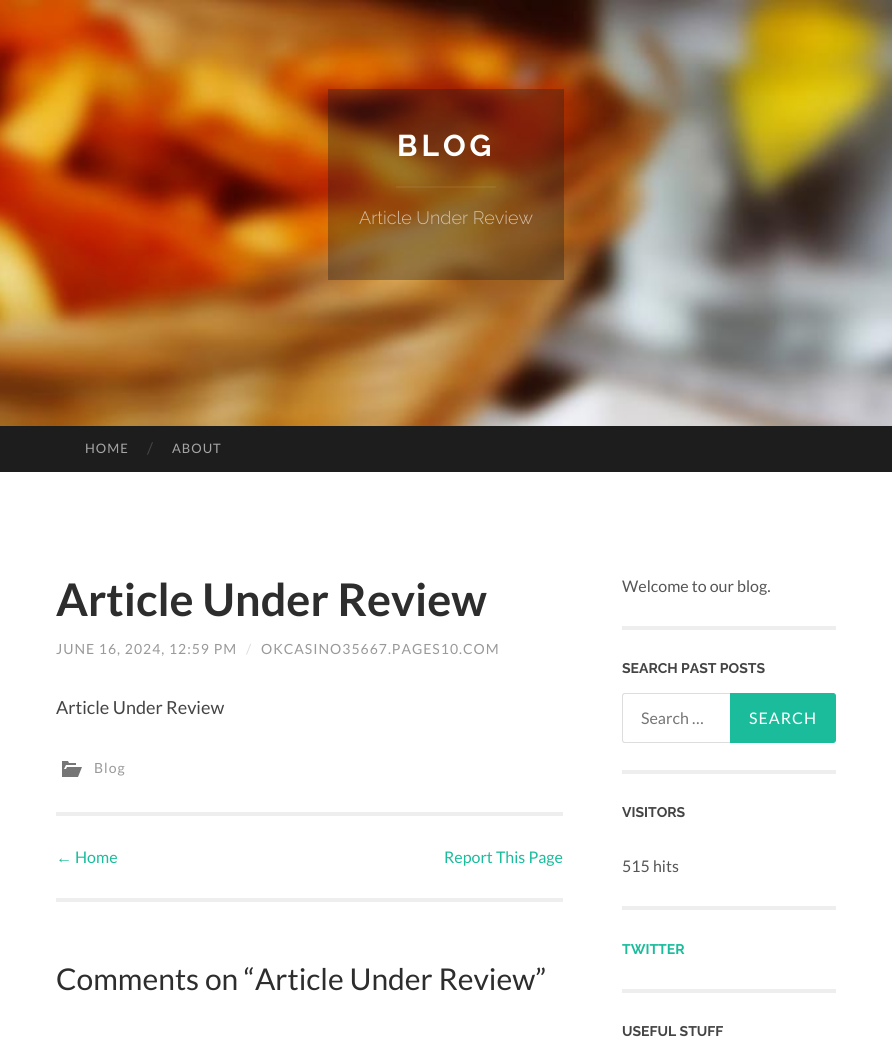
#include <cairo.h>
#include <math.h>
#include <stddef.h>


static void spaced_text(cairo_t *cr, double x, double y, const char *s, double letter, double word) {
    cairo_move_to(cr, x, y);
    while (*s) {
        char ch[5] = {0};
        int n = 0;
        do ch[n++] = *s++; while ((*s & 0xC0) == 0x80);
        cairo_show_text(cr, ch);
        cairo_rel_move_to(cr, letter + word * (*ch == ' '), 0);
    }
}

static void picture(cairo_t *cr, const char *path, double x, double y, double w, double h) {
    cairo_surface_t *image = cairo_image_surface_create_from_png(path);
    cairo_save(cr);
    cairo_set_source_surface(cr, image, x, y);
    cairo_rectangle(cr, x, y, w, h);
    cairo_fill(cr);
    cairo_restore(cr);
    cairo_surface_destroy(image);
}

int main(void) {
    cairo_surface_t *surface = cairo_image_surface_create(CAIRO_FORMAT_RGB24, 892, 1049);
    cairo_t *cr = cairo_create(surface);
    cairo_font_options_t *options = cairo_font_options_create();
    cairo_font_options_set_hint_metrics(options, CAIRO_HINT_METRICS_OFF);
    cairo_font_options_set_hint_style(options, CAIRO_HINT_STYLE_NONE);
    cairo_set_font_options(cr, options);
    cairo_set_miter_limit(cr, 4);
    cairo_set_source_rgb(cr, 1, 1, 1);
    cairo_paint(cr);
    picture(cr, "img1.png", 0, 0, 892, 426);
    cairo_set_source_rgba(cr, 0.114, 0.114, 0.114, 0.34);
    cairo_rectangle(cr, 328, 89, 236, 191);
    cairo_fill(cr);
    cairo_select_font_face(cr, "Raleway", CAIRO_FONT_SLANT_NORMAL, CAIRO_FONT_WEIGHT_BOLD);
    cairo_set_font_size(cr, 30);
    cairo_set_source_rgb(cr, 1, 1, 1);
    spaced_text(cr, 397, 156, "BLOG", 4, 0);
    cairo_set_source_rgba(cr, 1, 1, 1, 0.06);
    cairo_rectangle(cr, 396, 186, 100, 2);
    cairo_fill(cr);
    cairo_select_font_face(cr, "Raleway Light", CAIRO_FONT_SLANT_NORMAL, CAIRO_FONT_WEIGHT_NORMAL);
    cairo_set_font_size(cr, 18);
    cairo_set_source_rgb(cr, 0.827, 0.745, 0.651);
    cairo_move_to(cr, 359, 224);
    cairo_show_text(cr, "Article Under Review");
    cairo_set_source_rgb(cr, 0.114, 0.114, 0.114);
    cairo_rectangle(cr, 0, 426, 892, 46);
    cairo_fill(cr);
    cairo_select_font_face(cr, "Lato", CAIRO_FONT_SLANT_NORMAL, CAIRO_FONT_WEIGHT_NORMAL);
    cairo_set_font_size(cr, 13);
    cairo_set_source_rgb(cr, 0.647, 0.647, 0.647);
    spaced_text(cr, 85, 453, "HOME", 1, 0);
    cairo_set_font_size(cr, 16);
    cairo_set_source_rgb(cr, 0.267, 0.267, 0.267);
    cairo_move_to(cr, 147, 454);
    cairo_show_text(cr, "/");
    cairo_set_font_size(cr, 13);
    cairo_set_source_rgb(cr, 0.647, 0.647, 0.647);
    spaced_text(cr, 172, 453, "ABOUT", 1, 0);
    cairo_select_font_face(cr, "Lato", CAIRO_FONT_SLANT_NORMAL, CAIRO_FONT_WEIGHT_BOLD);
    cairo_set_font_size(cr, 45);
    cairo_set_source_rgb(cr, 0.176, 0.176, 0.176);
    cairo_move_to(cr, 56, 616);
    cairo_show_text(cr, "Article Under Review");
    cairo_select_font_face(cr, "Lato", CAIRO_FONT_SLANT_NORMAL, CAIRO_FONT_WEIGHT_NORMAL);
    cairo_set_font_size(cr, 14);
    cairo_set_source_rgb(cr, 0.6, 0.6, 0.6);
    spaced_text(cr, 56, 654, "JUNE 16, 2024, 12:59 PM", 1, 0);
    cairo_set_source_rgb(cr, 0.867, 0.867, 0.867);
    spaced_text(cr, 246, 654, "/", 1, 0);
    cairo_set_source_rgb(cr, 0.6, 0.6, 0.6);
    spaced_text(cr, 261, 654, "OKCASINO35667.PAGES10.COM", 1, 0);
    cairo_set_font_size(cr, 18);
    cairo_set_source_rgb(cr, 0.267, 0.267, 0.267);
    cairo_move_to(cr, 56, 714);
    cairo_show_text(cr, "Article Under Review");
    picture(cr, "img2.png", 62, 761, 20, 16);
    cairo_set_font_size(cr, 14);
    cairo_set_source_rgb(cr, 0.6, 0.6, 0.6);
    spaced_text(cr, 94, 773, "Blog", 1, 0);
    cairo_set_source_rgb(cr, 0.933, 0.933, 0.933);
    cairo_rectangle(cr, 56, 812, 507, 4);
    cairo_fill(cr);
    cairo_rectangle(cr, 56, 898, 507, 4);
    cairo_fill(cr);
    cairo_select_font_face(cr, "Liberation Sans", CAIRO_FONT_SLANT_NORMAL, CAIRO_FONT_WEIGHT_NORMAL);
    cairo_set_font_size(cr, 16);
    cairo_set_source_rgb(cr, 0.102, 0.737, 0.612);
    cairo_move_to(cr, 56, 863);
    cairo_show_text(cr, "←");
    cairo_select_font_face(cr, "Lato", CAIRO_FONT_SLANT_NORMAL, CAIRO_FONT_WEIGHT_NORMAL);
    cairo_move_to(cr, 75, 863);
    cairo_show_text(cr, "Home");
    cairo_move_to(cr, 444, 863);
    cairo_show_text(cr, "Report This Page");
    cairo_set_font_size(cr, 30);
    cairo_set_source_rgb(cr, 0.176, 0.176, 0.176);
    cairo_move_to(cr, 56, 990);
    cairo_show_text(cr, "Comments on “Article Under Review”");
    cairo_set_source_rgb(cr, 0.933, 0.933, 0.933);
    cairo_rectangle(cr, 622, 626, 214, 4);
    cairo_fill(cr);
    cairo_set_font_size(cr, 16);
    cairo_set_source_rgb(cr, 0.333, 0.333, 0.333);
    cairo_move_to(cr, 622, 592);
    cairo_show_text(cr, "Welcome to our blog.");
    cairo_set_source_rgb(cr, 0.933, 0.933, 0.933);
    cairo_rectangle(cr, 622, 770, 214, 4);
    cairo_fill(cr);
    cairo_select_font_face(cr, "Raleway", CAIRO_FONT_SLANT_NORMAL, CAIRO_FONT_WEIGHT_BOLD);
    cairo_set_font_size(cr, 14);
    cairo_set_source_rgb(cr, 0.267, 0.267, 0.267);
    cairo_move_to(cr, 622, 673);
    cairo_show_text(cr, "SEARCH PAST POSTS");
    cairo_set_source_rgb(cr, 0.867, 0.867, 0.867);
    cairo_set_fill_rule(cr, CAIRO_FILL_RULE_EVEN_ODD);
    cairo_new_path(cr);
    cairo_move_to(cr, 625, 693);
    cairo_line_to(cr, 834, 693);
    cairo_line_to(cr, 834, 743);
    cairo_line_to(cr, 625, 743);
    cairo_curve_to(cr, 623, 743, 622, 742, 622, 740);
    cairo_line_to(cr, 622, 696);
    cairo_curve_to(cr, 622, 694, 623, 693, 625, 693);
    cairo_close_path(cr);
    cairo_move_to(cr, 625, 694);
    cairo_line_to(cr, 834, 694);
    cairo_line_to(cr, 834, 742);
    cairo_line_to(cr, 625, 742);
    cairo_curve_to(cr, 624, 742, 623, 741, 623, 740);
    cairo_line_to(cr, 623, 696);
    cairo_curve_to(cr, 623, 695, 624, 694, 625, 694);
    cairo_close_path(cr);
    cairo_fill(cr);
    cairo_select_font_face(cr, "Lato", CAIRO_FONT_SLANT_NORMAL, CAIRO_FONT_WEIGHT_NORMAL);
    cairo_set_font_size(cr, 16);
    cairo_set_source_rgb(cr, 0.459, 0.459, 0.459);
    cairo_move_to(cr, 641, 724);
    cairo_show_text(cr, "Search …");
    cairo_set_source_rgb(cr, 0.102, 0.737, 0.612);
    cairo_new_path(cr);
    cairo_move_to(cr, 730.5, 693.5);
    cairo_line_to(cr, 833, 693.5);
    cairo_curve_to(cr, 834.5, 693.5, 835.5, 694.5, 835.5, 696);
    cairo_line_to(cr, 835.5, 740);
    cairo_curve_to(cr, 835.5, 741.5, 834.5, 742.5, 833, 742.5);
    cairo_line_to(cr, 730.5, 742.5);
    cairo_close_path(cr);
    cairo_fill_preserve(cr);
    cairo_set_line_width(cr, 1);
    cairo_stroke(cr);
    cairo_set_source_rgb(cr, 1, 1, 1);
    spaced_text(cr, 749, 724, "SEARCH", 1, 0);
    cairo_set_source_rgb(cr, 0.933, 0.933, 0.933);
    cairo_rectangle(cr, 622, 906, 214, 4);
    cairo_fill(cr);
    cairo_select_font_face(cr, "Raleway", CAIRO_FONT_SLANT_NORMAL, CAIRO_FONT_WEIGHT_BOLD);
    cairo_set_font_size(cr, 14);
    cairo_set_source_rgb(cr, 0.267, 0.267, 0.267);
    cairo_move_to(cr, 622, 817);
    cairo_show_text(cr, "VISITORS");
    cairo_select_font_face(cr, "Lato", CAIRO_FONT_SLANT_NORMAL, CAIRO_FONT_WEIGHT_NORMAL);
    cairo_set_font_size(cr, 16);
    cairo_set_source_rgb(cr, 0.333, 0.333, 0.333);
    cairo_move_to(cr, 622, 872);
    cairo_show_text(cr, "515 hits");
    cairo_set_source_rgb(cr, 0.933, 0.933, 0.933);
    cairo_rectangle(cr, 622, 989, 214, 4);
    cairo_fill(cr);
    cairo_select_font_face(cr, "Raleway", CAIRO_FONT_SLANT_NORMAL, CAIRO_FONT_WEIGHT_BOLD);
    cairo_set_font_size(cr, 14);
    cairo_set_source_rgb(cr, 0.102, 0.737, 0.612);
    cairo_move_to(cr, 622, 954);
    cairo_show_text(cr, "TWITTER");
    cairo_set_source_rgb(cr, 0.267, 0.267, 0.267);
    cairo_move_to(cr, 622, 1036);
    cairo_show_text(cr, "USEFUL STUFF");
    cairo_surface_write_to_png(surface, "page.png");
    cairo_font_options_destroy(options);
    cairo_destroy(cr);
    cairo_surface_destroy(surface);
    return 0;
}
